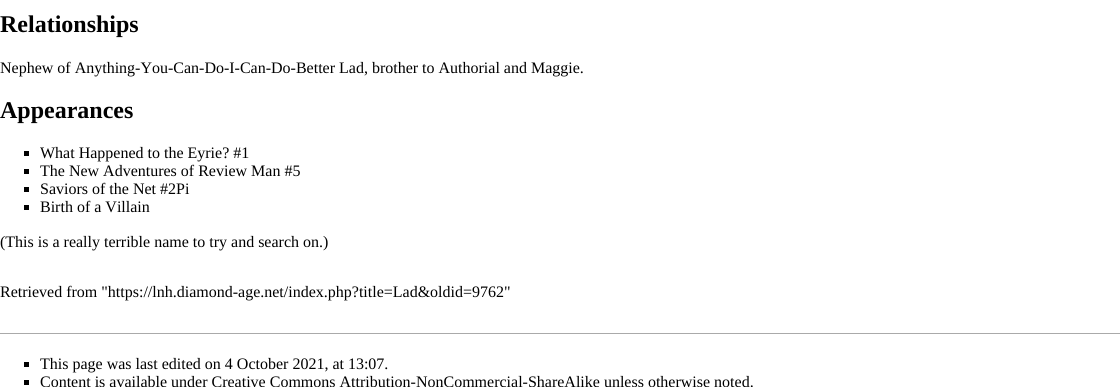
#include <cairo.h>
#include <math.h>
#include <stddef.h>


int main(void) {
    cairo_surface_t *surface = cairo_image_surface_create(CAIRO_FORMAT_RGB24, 1120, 387);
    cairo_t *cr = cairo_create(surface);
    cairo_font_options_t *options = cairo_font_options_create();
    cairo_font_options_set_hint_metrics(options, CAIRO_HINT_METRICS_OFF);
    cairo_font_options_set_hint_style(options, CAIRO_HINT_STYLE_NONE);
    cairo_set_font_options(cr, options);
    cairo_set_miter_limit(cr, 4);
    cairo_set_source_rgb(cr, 1, 1, 1);
    cairo_paint(cr);
    cairo_select_font_face(cr, "Liberation Serif", CAIRO_FONT_SLANT_NORMAL, CAIRO_FONT_WEIGHT_BOLD);
    cairo_set_font_size(cr, 24);
    cairo_set_source_rgb(cr, 0, 0, 0);
    cairo_move_to(cr, 0, 32);
    cairo_show_text(cr, "Relationships");
    cairo_select_font_face(cr, "Liberation Serif", CAIRO_FONT_SLANT_NORMAL, CAIRO_FONT_WEIGHT_NORMAL);
    cairo_set_font_size(cr, 16);
    cairo_move_to(cr, 0, 73);
    cairo_show_text(cr, "Nephew of Anything-You-Can-Do-I-Can-Do-Better Lad, brother to Authorial and Maggie.");
    cairo_select_font_face(cr, "Liberation Serif", CAIRO_FONT_SLANT_NORMAL, CAIRO_FONT_WEIGHT_BOLD);
    cairo_set_font_size(cr, 24);
    cairo_move_to(cr, 0, 118);
    cairo_show_text(cr, "Appearances");
    cairo_rectangle(cr, 24, 151, 5, 5);
    cairo_fill(cr);
    cairo_select_font_face(cr, "Liberation Serif", CAIRO_FONT_SLANT_NORMAL, CAIRO_FONT_WEIGHT_NORMAL);
    cairo_set_font_size(cr, 16);
    cairo_move_to(cr, 40, 158);
    cairo_show_text(cr, "What Happened to the Eyrie? #1");
    cairo_rectangle(cr, 24, 169, 5, 5);
    cairo_fill(cr);
    cairo_move_to(cr, 40, 176);
    cairo_show_text(cr, "The New Adventures of Review Man #5");
    cairo_rectangle(cr, 24, 187, 5, 5);
    cairo_fill(cr);
    cairo_move_to(cr, 40, 194);
    cairo_show_text(cr, "Saviors of the Net #2Pi");
    cairo_rectangle(cr, 24, 205, 5, 5);
    cairo_fill(cr);
    cairo_move_to(cr, 40, 212);
    cairo_show_text(cr, "Birth of a Villain");
    cairo_move_to(cr, 0, 247);
    cairo_show_text(cr, "(This is a really terrible name to try and search on.)");
    cairo_move_to(cr, 0, 297);
    cairo_show_text(cr, "Retrieved from \"https://lnh.diamond-age.net/index.php?title=Lad&oldid=9762\"");
    cairo_set_source_rgb(cr, 0.667, 0.667, 0.667);
    cairo_rectangle(cr, 0, 333, 1120, 1);
    cairo_fill(cr);
    cairo_set_source_rgb(cr, 0, 0, 0);
    cairo_rectangle(cr, 24, 362, 5, 5);
    cairo_fill(cr);
    cairo_move_to(cr, 40, 369);
    cairo_show_text(cr, "This page was last edited on 4 October 2021, at 13:07.");
    cairo_rectangle(cr, 24, 380, 5, 5);
    cairo_fill(cr);
    cairo_move_to(cr, 40, 387);
    cairo_show_text(cr, "Content is available under Creative Commons Attribution-NonCommercial-ShareAlike unless otherwise noted.");
    cairo_surface_write_to_png(surface, "page.png");
    cairo_font_options_destroy(options);
    cairo_destroy(cr);
    cairo_surface_destroy(surface);
    return 0;
}
